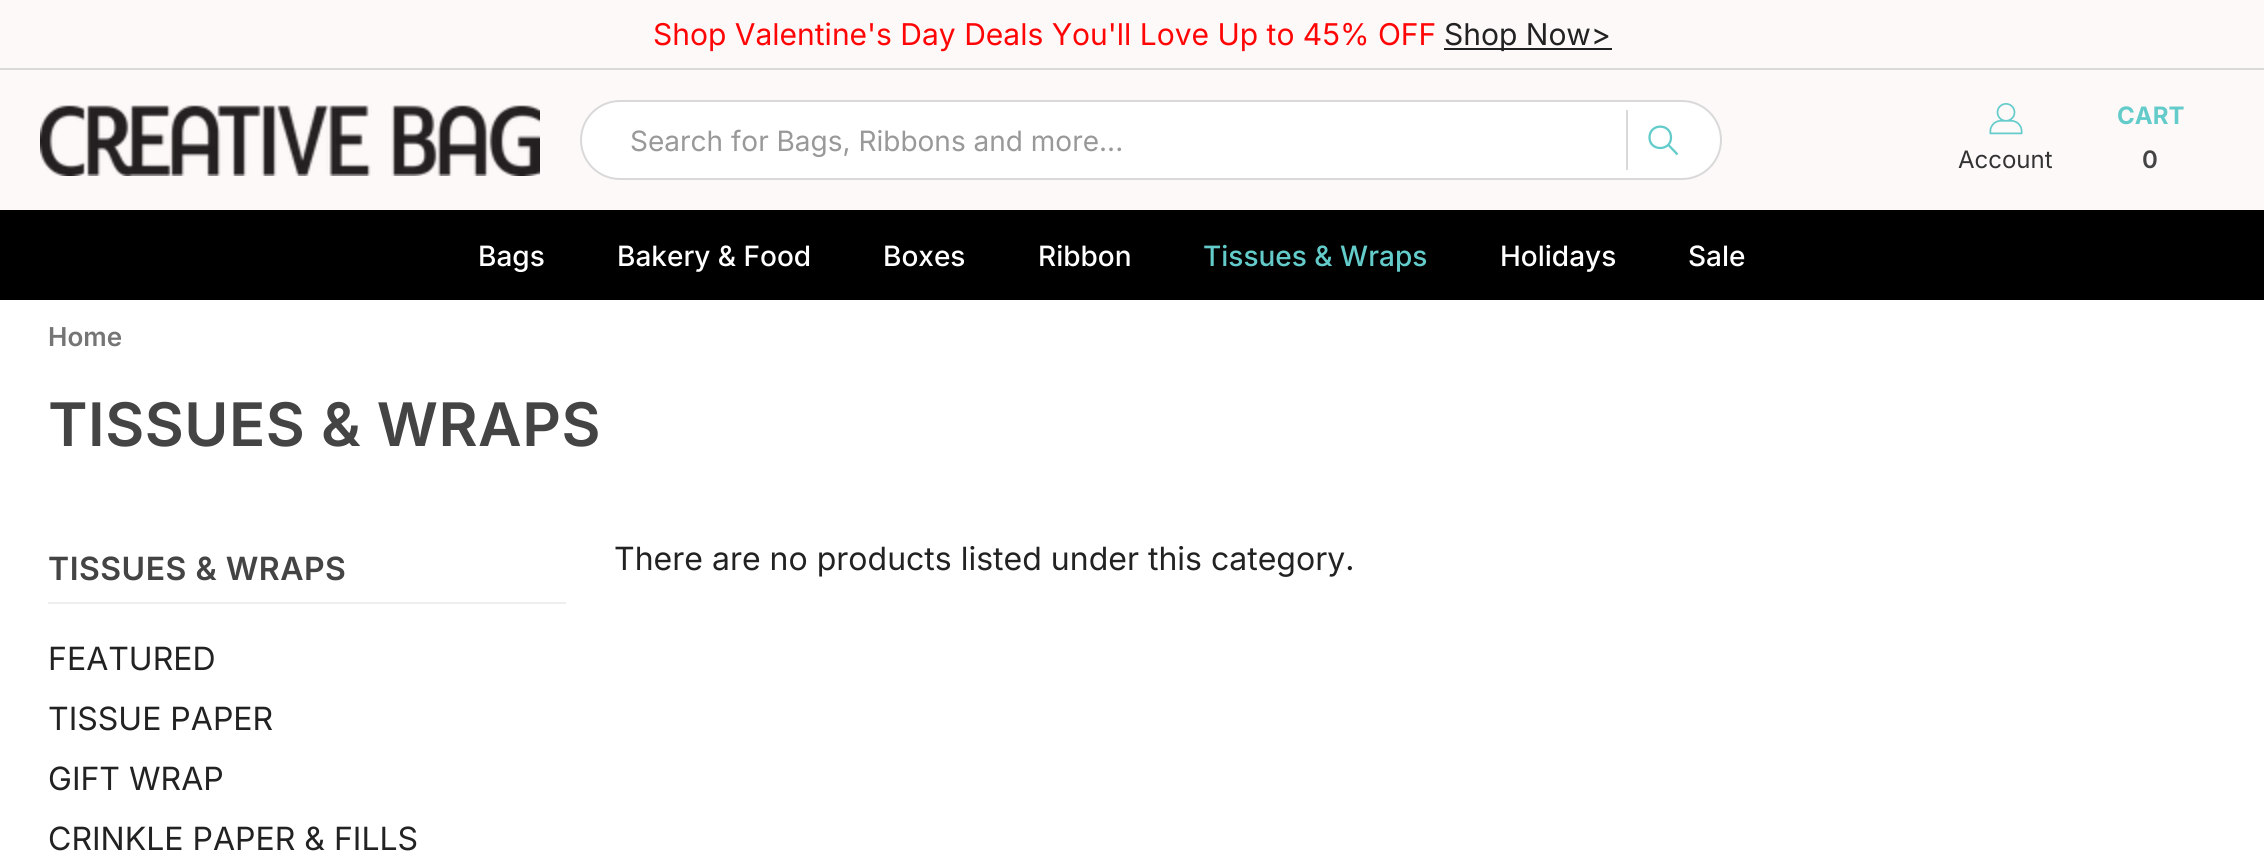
#include <cairo.h>
#include <math.h>
#include <stddef.h>


static void spaced_text(cairo_t *cr, double x, double y, const char *s, double letter, double word) {
    cairo_move_to(cr, x, y);
    while (*s) {
        char ch[5] = {0};
        int n = 0;
        do ch[n++] = *s++; while ((*s & 0xC0) == 0x80);
        cairo_show_text(cr, ch);
        cairo_rel_move_to(cr, letter + word * (*ch == ' '), 0);
    }
}

static void round_rect(cairo_t *cr, double x, double y, double w, double h, double r) {
    cairo_new_sub_path(cr);
    cairo_arc(cr, x + w - r, y + h - r, r, 0, M_PI / 2);
    cairo_arc(cr, x + r, y + h - r, r, M_PI / 2, M_PI);
    cairo_arc(cr, x + r, y + r, r, M_PI, 1.5 * M_PI);
    cairo_arc(cr, x + w - r, y + r, r, 1.5 * M_PI, 2 * M_PI);
    cairo_close_path(cr);
}

static void picture(cairo_t *cr, const char *path, double x, double y, double w, double h) {
    cairo_surface_t *image = cairo_image_surface_create_from_png(path);
    cairo_save(cr);
    cairo_set_source_surface(cr, image, x, y);
    cairo_rectangle(cr, x, y, w, h);
    cairo_fill(cr);
    cairo_restore(cr);
    cairo_surface_destroy(image);
}

int main(void) {
    cairo_surface_t *surface = cairo_image_surface_create(CAIRO_FORMAT_RGB24, 2264, 858);
    cairo_t *cr = cairo_create(surface);
    cairo_font_options_t *options = cairo_font_options_create();
    cairo_font_options_set_hint_metrics(options, CAIRO_HINT_METRICS_OFF);
    cairo_font_options_set_hint_style(options, CAIRO_HINT_STYLE_NONE);
    cairo_set_font_options(cr, options);
    cairo_set_miter_limit(cr, 4);
    cairo_set_source_rgb(cr, 1, 1, 1);
    cairo_paint(cr);
    cairo_set_source_rgb(cr, 0.996, 0.973, 0.973);
    cairo_rectangle(cr, 0, 0, 2264, 210);
    cairo_fill(cr);
    cairo_set_source_rgb(cr, 0.851, 0.851, 0.851);
    cairo_rectangle(cr, 0, 68, 2264, 2);
    cairo_fill(cr);
    cairo_select_font_face(cr, "Inter", CAIRO_FONT_SLANT_NORMAL, CAIRO_FONT_WEIGHT_NORMAL);
    cairo_set_font_size(cr, 30);
    cairo_set_source_rgb(cr, 1, 0.027, 0.027);
    cairo_move_to(cr, 653, 45);
    cairo_show_text(cr, "Shop Valentine's Day Deals You'll Love Up to 45% OFF");
    cairo_set_source_rgb(cr, 0.133, 0.133, 0.133);
    cairo_rectangle(cr, 1444, 48, 168, 2);
    cairo_fill(cr);
    cairo_move_to(cr, 1444, 45);
    cairo_show_text(cr, "Shop Now>");
    picture(cr, "img1.png", 40, 105, 500, 71);
    cairo_set_source_rgb(cr, 1, 1, 1);
    round_rect(cr, 581, 101, 1140, 78, 39);
    cairo_fill_preserve(cr);
    cairo_set_source_rgb(cr, 0.851, 0.851, 0.851);
    cairo_stroke(cr);
    cairo_set_font_size(cr, 28);
    cairo_set_source_rgb(cr, 0.6, 0.6, 0.6);
    cairo_move_to(cr, 630, 151);
    cairo_show_text(cr, "Search for Bags, Ribbons and more...");
    cairo_set_source_rgb(cr, 0.851, 0.851, 0.851);
    cairo_rectangle(cr, 1626, 110, 2, 60);
    cairo_fill(cr);
    cairo_new_path(cr);
    cairo_move_to(cr, 1668, 144.5);
    cairo_line_to(cr, 1677.5, 154.5);
    cairo_move_to(cr, 1671, 137.5);
    cairo_curve_to(cr, 1671, 151.5, 1649.5, 151.5, 1649.5, 137.5);
    cairo_curve_to(cr, 1649.5, 123, 1671, 123, 1671, 137.5);
    cairo_close_path(cr);
    cairo_set_source_rgb(cr, 0.388, 0.8, 0.792);
    cairo_set_line_width(cr, 2.3);
    cairo_stroke(cr);
    picture(cr, "img2.png", 1989, 103, 34, 32);
    cairo_set_font_size(cr, 24);
    cairo_set_source_rgb(cr, 0.2, 0.2, 0.2);
    cairo_move_to(cr, 1958, 168);
    cairo_show_text(cr, "Account");
    cairo_select_font_face(cr, "Inter", CAIRO_FONT_SLANT_NORMAL, CAIRO_FONT_WEIGHT_BOLD);
    cairo_set_source_rgb(cr, 0.388, 0.8, 0.792);
    cairo_move_to(cr, 2117, 124);
    cairo_show_text(cr, "CART");
    cairo_select_font_face(cr, "Inter SemiBold", CAIRO_FONT_SLANT_NORMAL, CAIRO_FONT_WEIGHT_NORMAL);
    cairo_set_source_rgb(cr, 0.267, 0.267, 0.267);
    cairo_move_to(cr, 2142, 168);
    cairo_show_text(cr, "0");
    cairo_set_source_rgb(cr, 0, 0, 0);
    cairo_rectangle(cr, 0, 210, 2264, 90);
    cairo_fill(cr);
    cairo_select_font_face(cr, "Inter Medium", CAIRO_FONT_SLANT_NORMAL, CAIRO_FONT_WEIGHT_NORMAL);
    cairo_set_font_size(cr, 28);
    cairo_set_source_rgb(cr, 1, 1, 1);
    cairo_move_to(cr, 478, 266);
    cairo_show_text(cr, "Bags");
    cairo_move_to(cr, 617, 266);
    cairo_show_text(cr, "Bakery & Food");
    cairo_move_to(cr, 883, 266);
    cairo_show_text(cr, "Boxes");
    cairo_move_to(cr, 1038, 266);
    cairo_show_text(cr, "Ribbon");
    cairo_set_source_rgb(cr, 0.388, 0.8, 0.792);
    cairo_move_to(cr, 1203, 266);
    cairo_show_text(cr, "Tissues & Wraps");
    cairo_set_source_rgb(cr, 1, 1, 1);
    cairo_move_to(cr, 1500, 266);
    cairo_show_text(cr, "Holidays");
    cairo_move_to(cr, 1688, 266);
    cairo_show_text(cr, "Sale");
    cairo_select_font_face(cr, "Inter SemiBold", CAIRO_FONT_SLANT_NORMAL, CAIRO_FONT_WEIGHT_NORMAL);
    cairo_set_font_size(cr, 26);
    cairo_set_source_rgb(cr, 0.459, 0.459, 0.459);
    cairo_move_to(cr, 48, 346);
    cairo_show_text(cr, "Home");
    cairo_set_font_size(cr, 60);
    cairo_set_source_rgb(cr, 0.267, 0.267, 0.267);
    spaced_text(cr, 48, 446, "TISSUES & WRAPS", 0.5, 0);
    cairo_set_source_rgb(cr, 0.933, 0.933, 0.933);
    cairo_rectangle(cr, 48, 602, 518, 2);
    cairo_fill(cr);
    cairo_set_font_size(cr, 32);
    cairo_set_source_rgb(cr, 0.267, 0.267, 0.267);
    spaced_text(cr, 48, 580, "TISSUES & WRAPS", 0.5, 0);
    cairo_select_font_face(cr, "Inter", CAIRO_FONT_SLANT_NORMAL, CAIRO_FONT_WEIGHT_NORMAL);
    cairo_set_source_rgb(cr, 0.133, 0.133, 0.133);
    cairo_move_to(cr, 48, 670);
    cairo_show_text(cr, "FEATURED");
    cairo_move_to(cr, 48, 730);
    cairo_show_text(cr, "TISSUE PAPER");
    cairo_move_to(cr, 48, 790);
    cairo_show_text(cr, "GIFT WRAP");
    cairo_move_to(cr, 48, 850);
    cairo_show_text(cr, "CRINKLE PAPER & FILLS");
    cairo_move_to(cr, 614, 570);
    cairo_show_text(cr, "There are no products listed under this category.");
    cairo_surface_write_to_png(surface, "page.png");
    cairo_font_options_destroy(options);
    cairo_destroy(cr);
    cairo_surface_destroy(surface);
    return 0;
}
